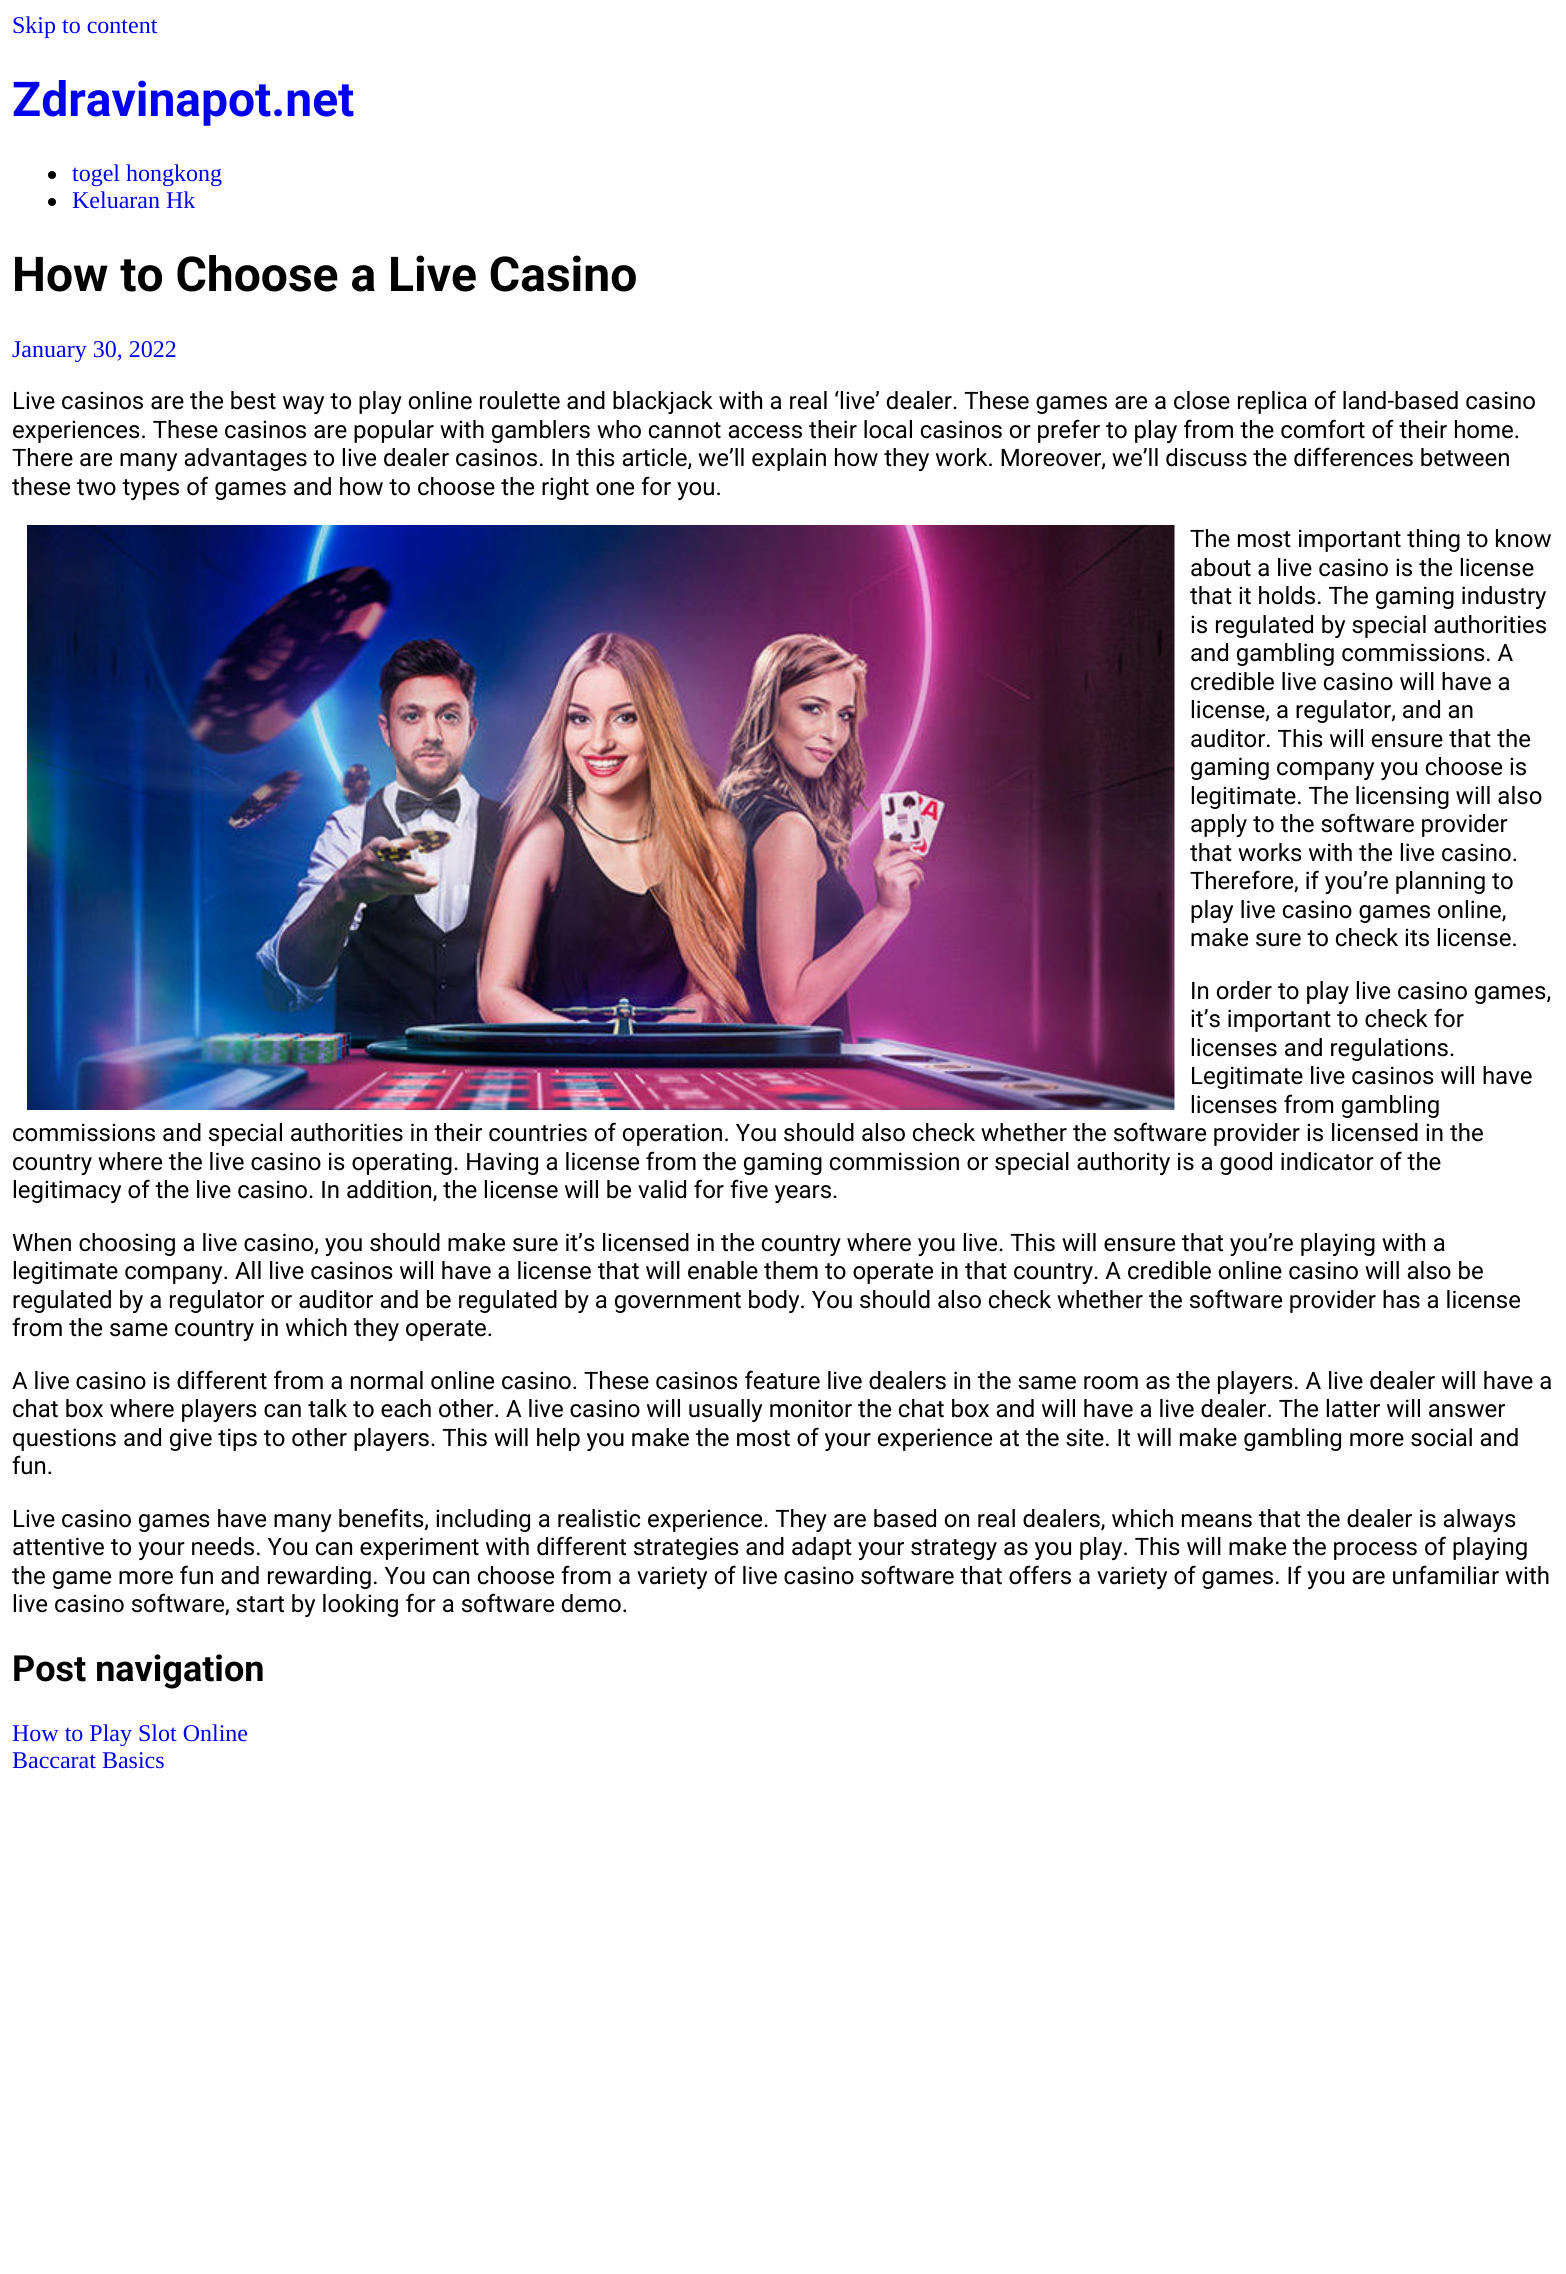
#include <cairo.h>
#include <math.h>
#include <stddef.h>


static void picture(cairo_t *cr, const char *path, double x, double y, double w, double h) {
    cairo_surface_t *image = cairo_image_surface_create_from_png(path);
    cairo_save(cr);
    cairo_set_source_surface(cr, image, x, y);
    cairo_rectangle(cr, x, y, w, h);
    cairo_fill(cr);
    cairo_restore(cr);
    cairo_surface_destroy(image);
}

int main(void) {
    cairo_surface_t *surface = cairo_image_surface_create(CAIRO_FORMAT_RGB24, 1566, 2274);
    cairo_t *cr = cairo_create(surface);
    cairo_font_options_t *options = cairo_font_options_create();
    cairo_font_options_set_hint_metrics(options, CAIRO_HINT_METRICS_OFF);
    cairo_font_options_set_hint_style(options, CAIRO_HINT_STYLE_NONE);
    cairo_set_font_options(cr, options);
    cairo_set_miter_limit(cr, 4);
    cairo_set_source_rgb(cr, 1, 1, 1);
    cairo_paint(cr);
    cairo_select_font_face(cr, "Liberation Serif", CAIRO_FONT_SLANT_NORMAL, CAIRO_FONT_WEIGHT_NORMAL);
    cairo_set_font_size(cr, 24);
    cairo_set_source_rgb(cr, 0, 0, 0.933);
    cairo_move_to(cr, 12, 33);
    cairo_show_text(cr, "Skip to content");
    cairo_select_font_face(cr, "Roboto", CAIRO_FONT_SLANT_NORMAL, CAIRO_FONT_WEIGHT_BOLD);
    cairo_set_font_size(cr, 48);
    cairo_move_to(cr, 12, 116);
    cairo_show_text(cr, "Zdravinapot.net");
    cairo_set_source_rgb(cr, 0, 0, 0);
    cairo_new_path(cr);
    cairo_arc(cr, 52, 175, 4, 0, 2 * M_PI);
    cairo_fill(cr);
    cairo_select_font_face(cr, "Liberation Serif", CAIRO_FONT_SLANT_NORMAL, CAIRO_FONT_WEIGHT_NORMAL);
    cairo_set_font_size(cr, 24);
    cairo_set_source_rgb(cr, 0, 0, 0.933);
    cairo_move_to(cr, 72, 181);
    cairo_show_text(cr, "togel hongkong");
    cairo_set_source_rgb(cr, 0, 0, 0);
    cairo_new_path(cr);
    cairo_arc(cr, 52, 202, 4, 0, 2 * M_PI);
    cairo_fill(cr);
    cairo_set_source_rgb(cr, 0, 0, 0.933);
    cairo_move_to(cr, 72, 208);
    cairo_show_text(cr, "Keluaran Hk");
    cairo_select_font_face(cr, "Roboto", CAIRO_FONT_SLANT_NORMAL, CAIRO_FONT_WEIGHT_BOLD);
    cairo_set_font_size(cr, 48);
    cairo_set_source_rgb(cr, 0, 0, 0);
    cairo_move_to(cr, 12, 291);
    cairo_show_text(cr, "How to Choose a Live Casino");
    cairo_select_font_face(cr, "Liberation Serif", CAIRO_FONT_SLANT_NORMAL, CAIRO_FONT_WEIGHT_NORMAL);
    cairo_set_font_size(cr, 24);
    cairo_set_source_rgb(cr, 0, 0, 0.933);
    cairo_move_to(cr, 12, 357);
    cairo_show_text(cr, "January 30, 2022");
    cairo_select_font_face(cr, "Roboto", CAIRO_FONT_SLANT_NORMAL, CAIRO_FONT_WEIGHT_NORMAL);
    cairo_set_source_rgb(cr, 0, 0, 0);
    cairo_move_to(cr, 12, 409);
    cairo_show_text(cr, "Live casinos are the best way to play online roulette and blackjack with a real ‘live’ dealer. These games are a close replica of land-based casino");
    cairo_move_to(cr, 12, 438);
    cairo_show_text(cr, "experiences. These casinos are popular with gamblers who cannot access their local casinos or prefer to play from the comfort of their home.");
    cairo_move_to(cr, 12, 466);
    cairo_show_text(cr, "There are many advantages to live dealer casinos. In this article, we’ll explain how they work. Moreover, we’ll discuss the differences between");
    cairo_move_to(cr, 12, 495);
    cairo_show_text(cr, "these two types of games and how to choose the right one for you.");
    picture(cr, "img1.png", 27, 525, 1148, 585);
    cairo_move_to(cr, 1190, 547);
    cairo_show_text(cr, "The most important thing to know");
    cairo_move_to(cr, 1190, 576);
    cairo_show_text(cr, "about a live casino is the license");
    cairo_move_to(cr, 1190, 604);
    cairo_show_text(cr, "that it holds. The gaming industry");
    cairo_move_to(cr, 1190, 633);
    cairo_show_text(cr, "is regulated by special authorities");
    cairo_move_to(cr, 1190, 661);
    cairo_show_text(cr, "and gambling commissions. A");
    cairo_move_to(cr, 1190, 690);
    cairo_show_text(cr, "credible live casino will have a");
    cairo_move_to(cr, 1190, 718);
    cairo_show_text(cr, "license, a regulator, and an");
    cairo_move_to(cr, 1190, 747);
    cairo_show_text(cr, "auditor. This will ensure that the");
    cairo_move_to(cr, 1190, 775);
    cairo_show_text(cr, "gaming company you choose is");
    cairo_move_to(cr, 1190, 804);
    cairo_show_text(cr, "legitimate. The licensing will also");
    cairo_move_to(cr, 1190, 832);
    cairo_show_text(cr, "apply to the software provider");
    cairo_move_to(cr, 1190, 861);
    cairo_show_text(cr, "that works with the live casino.");
    cairo_move_to(cr, 1190, 889);
    cairo_show_text(cr, "Therefore, if you’re planning to");
    cairo_move_to(cr, 1190, 918);
    cairo_show_text(cr, "play live casino games online,");
    cairo_move_to(cr, 1190, 946);
    cairo_show_text(cr, "make sure to check its license.");
    cairo_move_to(cr, 1190, 999);
    cairo_show_text(cr, "In order to play live casino games,");
    cairo_move_to(cr, 1190, 1027);
    cairo_show_text(cr, "it’s important to check for");
    cairo_move_to(cr, 1190, 1056);
    cairo_show_text(cr, "licenses and regulations.");
    cairo_move_to(cr, 1190, 1084);
    cairo_show_text(cr, "Legitimate live casinos will have");
    cairo_move_to(cr, 1190, 1113);
    cairo_show_text(cr, "licenses from gambling");
    cairo_move_to(cr, 12, 1141);
    cairo_show_text(cr, "commissions and special authorities in their countries of operation. You should also check whether the software provider is licensed in the");
    cairo_move_to(cr, 12, 1170);
    cairo_show_text(cr, "country where the live casino is operating. Having a license from the gaming commission or special authority is a good indicator of the");
    cairo_move_to(cr, 12, 1198);
    cairo_show_text(cr, "legitimacy of the live casino. In addition, the license will be valid for five years.");
    cairo_move_to(cr, 12, 1251);
    cairo_show_text(cr, "When choosing a live casino, you should make sure it’s licensed in the country where you live. This will ensure that you’re playing with a");
    cairo_move_to(cr, 12, 1279);
    cairo_show_text(cr, "legitimate company. All live casinos will have a license that will enable them to operate in that country. A credible online casino will also be");
    cairo_move_to(cr, 12, 1308);
    cairo_show_text(cr, "regulated by a regulator or auditor and be regulated by a government body. You should also check whether the software provider has a license");
    cairo_move_to(cr, 12, 1336);
    cairo_show_text(cr, "from the same country in which they operate.");
    cairo_move_to(cr, 12, 1389);
    cairo_show_text(cr, "A live casino is different from a normal online casino. These casinos feature live dealers in the same room as the players. A live dealer will have a");
    cairo_move_to(cr, 12, 1417);
    cairo_show_text(cr, "chat box where players can talk to each other. A live casino will usually monitor the chat box and will have a live dealer. The latter will answer");
    cairo_move_to(cr, 12, 1446);
    cairo_show_text(cr, "questions and give tips to other players. This will help you make the most of your experience at the site. It will make gambling more social and");
    cairo_move_to(cr, 12, 1474);
    cairo_show_text(cr, "fun.");
    cairo_move_to(cr, 12, 1527);
    cairo_show_text(cr, "Live casino games have many benefits, including a realistic experience. They are based on real dealers, which means that the dealer is always");
    cairo_move_to(cr, 12, 1555);
    cairo_show_text(cr, "attentive to your needs. You can experiment with different strategies and adapt your strategy as you play. This will make the process of playing");
    cairo_move_to(cr, 12, 1584);
    cairo_show_text(cr, "the game more fun and rewarding. You can choose from a variety of live casino software that offers a variety of games. If you are unfamiliar with");
    cairo_move_to(cr, 12, 1612);
    cairo_show_text(cr, "live casino software, start by looking for a software demo.");
    cairo_select_font_face(cr, "Roboto", CAIRO_FONT_SLANT_NORMAL, CAIRO_FONT_WEIGHT_BOLD);
    cairo_set_font_size(cr, 36);
    cairo_move_to(cr, 12, 1681);
    cairo_show_text(cr, "Post navigation");
    cairo_select_font_face(cr, "Liberation Serif", CAIRO_FONT_SLANT_NORMAL, CAIRO_FONT_WEIGHT_NORMAL);
    cairo_set_font_size(cr, 24);
    cairo_set_source_rgb(cr, 0, 0, 0.933);
    cairo_move_to(cr, 12, 1741);
    cairo_show_text(cr, "How to Play Slot Online");
    cairo_move_to(cr, 12, 1768);
    cairo_show_text(cr, "Baccarat Basics");
    cairo_surface_write_to_png(surface, "page.png");
    cairo_font_options_destroy(options);
    cairo_destroy(cr);
    cairo_surface_destroy(surface);
    return 0;
}
